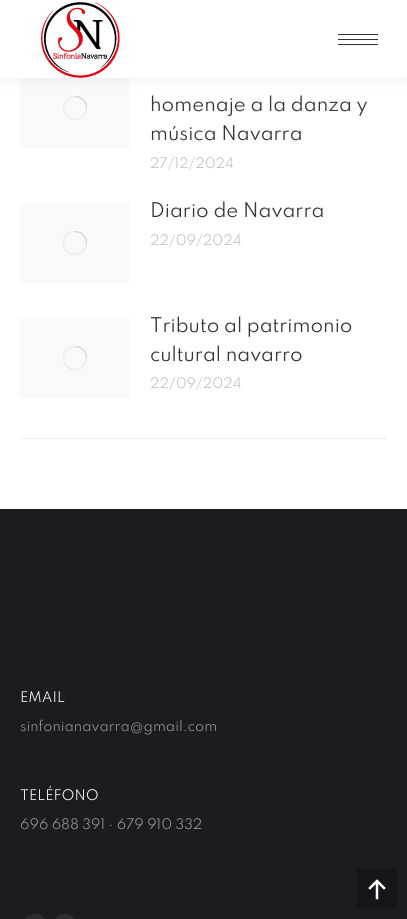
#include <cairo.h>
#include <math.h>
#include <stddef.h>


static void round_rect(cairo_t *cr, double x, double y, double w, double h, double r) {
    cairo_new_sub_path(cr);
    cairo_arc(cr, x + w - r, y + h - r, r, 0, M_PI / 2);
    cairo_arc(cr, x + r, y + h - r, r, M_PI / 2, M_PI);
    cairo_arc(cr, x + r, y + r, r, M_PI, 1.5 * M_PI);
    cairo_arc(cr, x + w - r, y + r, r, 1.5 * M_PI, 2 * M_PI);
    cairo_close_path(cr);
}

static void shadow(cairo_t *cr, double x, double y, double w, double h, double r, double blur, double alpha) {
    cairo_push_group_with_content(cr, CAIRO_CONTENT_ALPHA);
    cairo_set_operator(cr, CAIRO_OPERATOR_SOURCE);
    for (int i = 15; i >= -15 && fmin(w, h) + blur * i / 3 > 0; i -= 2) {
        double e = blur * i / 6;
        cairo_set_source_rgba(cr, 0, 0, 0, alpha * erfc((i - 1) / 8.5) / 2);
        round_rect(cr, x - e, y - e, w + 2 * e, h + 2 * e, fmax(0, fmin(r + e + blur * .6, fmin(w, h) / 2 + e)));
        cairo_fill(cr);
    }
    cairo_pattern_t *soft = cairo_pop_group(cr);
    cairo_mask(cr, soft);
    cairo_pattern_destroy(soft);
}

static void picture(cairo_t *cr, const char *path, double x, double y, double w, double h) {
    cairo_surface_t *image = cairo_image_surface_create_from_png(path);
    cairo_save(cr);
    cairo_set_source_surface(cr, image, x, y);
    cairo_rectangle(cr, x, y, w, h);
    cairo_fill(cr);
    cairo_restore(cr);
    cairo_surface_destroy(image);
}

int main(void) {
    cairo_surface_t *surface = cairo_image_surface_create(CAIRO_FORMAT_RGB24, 407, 919);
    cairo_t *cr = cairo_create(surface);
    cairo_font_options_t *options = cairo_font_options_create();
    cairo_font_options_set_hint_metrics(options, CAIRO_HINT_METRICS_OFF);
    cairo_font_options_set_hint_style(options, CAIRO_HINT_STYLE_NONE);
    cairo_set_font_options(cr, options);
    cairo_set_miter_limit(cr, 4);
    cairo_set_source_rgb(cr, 1, 1, 1);
    cairo_paint(cr);
    cairo_set_source_rgb(cr, 0.976, 0.976, 0.98);
    cairo_rectangle(cr, 20, 78, 110, 70);
    cairo_fill(cr);
    cairo_save(cr);
    cairo_rectangle(cr, 63, 96, 24, 24);
    cairo_clip(cr);
    cairo_arc(cr, 75, 108, 11.5, 0, 2 * M_PI);
    cairo_set_source_rgb(cr, 0.918, 0.918, 0.925);
    cairo_set_line_width(cr, 1.3);
    cairo_stroke(cr);
    cairo_restore(cr);
    cairo_new_path(cr);
    cairo_move_to(cr, 86.5, 108);
    cairo_curve_to(cr, 86.5, 101.5, 81.5, 96.5, 75, 96.5);
    cairo_set_source_rgba(cr, 0.545, 0.553, 0.58, 0.25);
    cairo_set_line_width(cr, 1.3);
    cairo_stroke(cr);
    cairo_set_source_rgb(cr, 0, 0, 0);
    shadow(cr, -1, -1, 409, 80, 0, 7.5, 0.07);
    cairo_set_source_rgb(cr, 1, 1, 1);
    cairo_rectangle(cr, 0, 0, 407, 78);
    cairo_fill(cr);
    picture(cr, "img1.png", 41, 2, 79, 76);
    cairo_set_source_rgb(cr, 0.2, 0.2, 0.2);
    cairo_rectangle(cr, 338, 34, 40, 1);
    cairo_fill(cr);
    cairo_rectangle(cr, 338, 39, 40, 1);
    cairo_fill(cr);
    cairo_rectangle(cr, 338, 44, 40, 1);
    cairo_fill(cr);
    cairo_set_source_rgb(cr, 0.922, 0.922, 0.922);
    cairo_rectangle(cr, 20, 438, 367, 1);
    cairo_fill(cr);
    cairo_select_font_face(cr, "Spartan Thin", CAIRO_FONT_SLANT_NORMAL, CAIRO_FONT_WEIGHT_NORMAL);
    cairo_set_font_size(cr, 18);
    cairo_set_source_rgb(cr, 0.2, 0.2, 0.2);
    cairo_move_to(cr, 150, 111);
    cairo_show_text(cr, "homenaje a la danza y");
    cairo_move_to(cr, 150, 140);
    cairo_show_text(cr, "música Navarra");
    cairo_set_font_size(cr, 13);
    cairo_set_source_rgb(cr, 0.773, 0.776, 0.792);
    cairo_move_to(cr, 150, 168);
    cairo_show_text(cr, "27/12/2024");
    cairo_set_source_rgb(cr, 0.976, 0.976, 0.98);
    cairo_rectangle(cr, 20, 203, 110, 80);
    cairo_fill(cr);
    cairo_save(cr);
    cairo_rectangle(cr, 63, 231, 24, 24);
    cairo_clip(cr);
    cairo_arc(cr, 75, 243, 11.5, 0, 2 * M_PI);
    cairo_set_source_rgb(cr, 0.918, 0.918, 0.925);
    cairo_stroke(cr);
    cairo_restore(cr);
    cairo_new_path(cr);
    cairo_move_to(cr, 86.5, 243);
    cairo_curve_to(cr, 86.5, 236.5, 81.5, 231.5, 75, 231.5);
    cairo_set_source_rgba(cr, 0.545, 0.553, 0.58, 0.25);
    cairo_stroke(cr);
    cairo_set_font_size(cr, 18);
    cairo_set_source_rgb(cr, 0.2, 0.2, 0.2);
    cairo_move_to(cr, 150, 217);
    cairo_show_text(cr, "Diario de Navarra");
    cairo_set_font_size(cr, 13);
    cairo_set_source_rgb(cr, 0.773, 0.776, 0.792);
    cairo_move_to(cr, 150, 245);
    cairo_show_text(cr, "22/09/2024");
    cairo_set_source_rgb(cr, 0.976, 0.976, 0.98);
    cairo_rectangle(cr, 20, 318, 110, 80);
    cairo_fill(cr);
    cairo_save(cr);
    cairo_rectangle(cr, 63, 346, 24, 24);
    cairo_clip(cr);
    cairo_arc(cr, 75, 358, 11.5, 0, 2 * M_PI);
    cairo_set_source_rgb(cr, 0.918, 0.918, 0.925);
    cairo_stroke(cr);
    cairo_restore(cr);
    cairo_new_path(cr);
    cairo_move_to(cr, 86.5, 358);
    cairo_curve_to(cr, 86.5, 351.5, 81.5, 346.5, 75, 346.5);
    cairo_set_source_rgba(cr, 0.545, 0.553, 0.58, 0.25);
    cairo_stroke(cr);
    cairo_set_font_size(cr, 18);
    cairo_set_source_rgb(cr, 0.2, 0.2, 0.2);
    cairo_move_to(cr, 150, 332);
    cairo_show_text(cr, "Tributo al patrimonio");
    cairo_move_to(cr, 150, 361);
    cairo_show_text(cr, "cultural navarro");
    cairo_set_font_size(cr, 13);
    cairo_set_source_rgb(cr, 0.773, 0.776, 0.792);
    cairo_move_to(cr, 150, 388);
    cairo_show_text(cr, "22/09/2024");
    cairo_set_source_rgb(cr, 0.102, 0.11, 0.125);
    cairo_rectangle(cr, 0, 509, 407, 410);
    cairo_fill(cr);
    cairo_set_source_rgb(cr, 0.933, 0.933, 0.933);
    cairo_move_to(cr, 20, 702);
    cairo_show_text(cr, "EMAIL");
    cairo_set_source_rgb(cr, 0.545, 0.553, 0.58);
    cairo_move_to(cr, 20, 731);
    cairo_show_text(cr, "sinfonianavarra@gmail.com");
    cairo_set_source_rgb(cr, 0.933, 0.933, 0.933);
    cairo_move_to(cr, 20, 800);
    cairo_show_text(cr, "TELÉFONO");
    cairo_set_source_rgb(cr, 0.545, 0.553, 0.58);
    cairo_move_to(cr, 20, 829);
    cairo_show_text(cr, "696 688 391 · 679 910 332");
    cairo_set_source_rgb(cr, 0.169, 0.176, 0.192);
    round_rect(cr, 22, 914, 26, 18, 13);
    cairo_fill(cr);
    round_rect(cr, 52, 914, 26, 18, 13);
    cairo_fill(cr);
    cairo_set_source_rgb(cr, 0.082, 0.086, 0.102);
    cairo_rectangle(cr, 357, 869, 40, 40);
    cairo_fill(cr);
    picture(cr, "img2.png", 368, 879, 18, 21);
    cairo_surface_write_to_png(surface, "page.png");
    cairo_font_options_destroy(options);
    cairo_destroy(cr);
    cairo_surface_destroy(surface);
    return 0;
}
